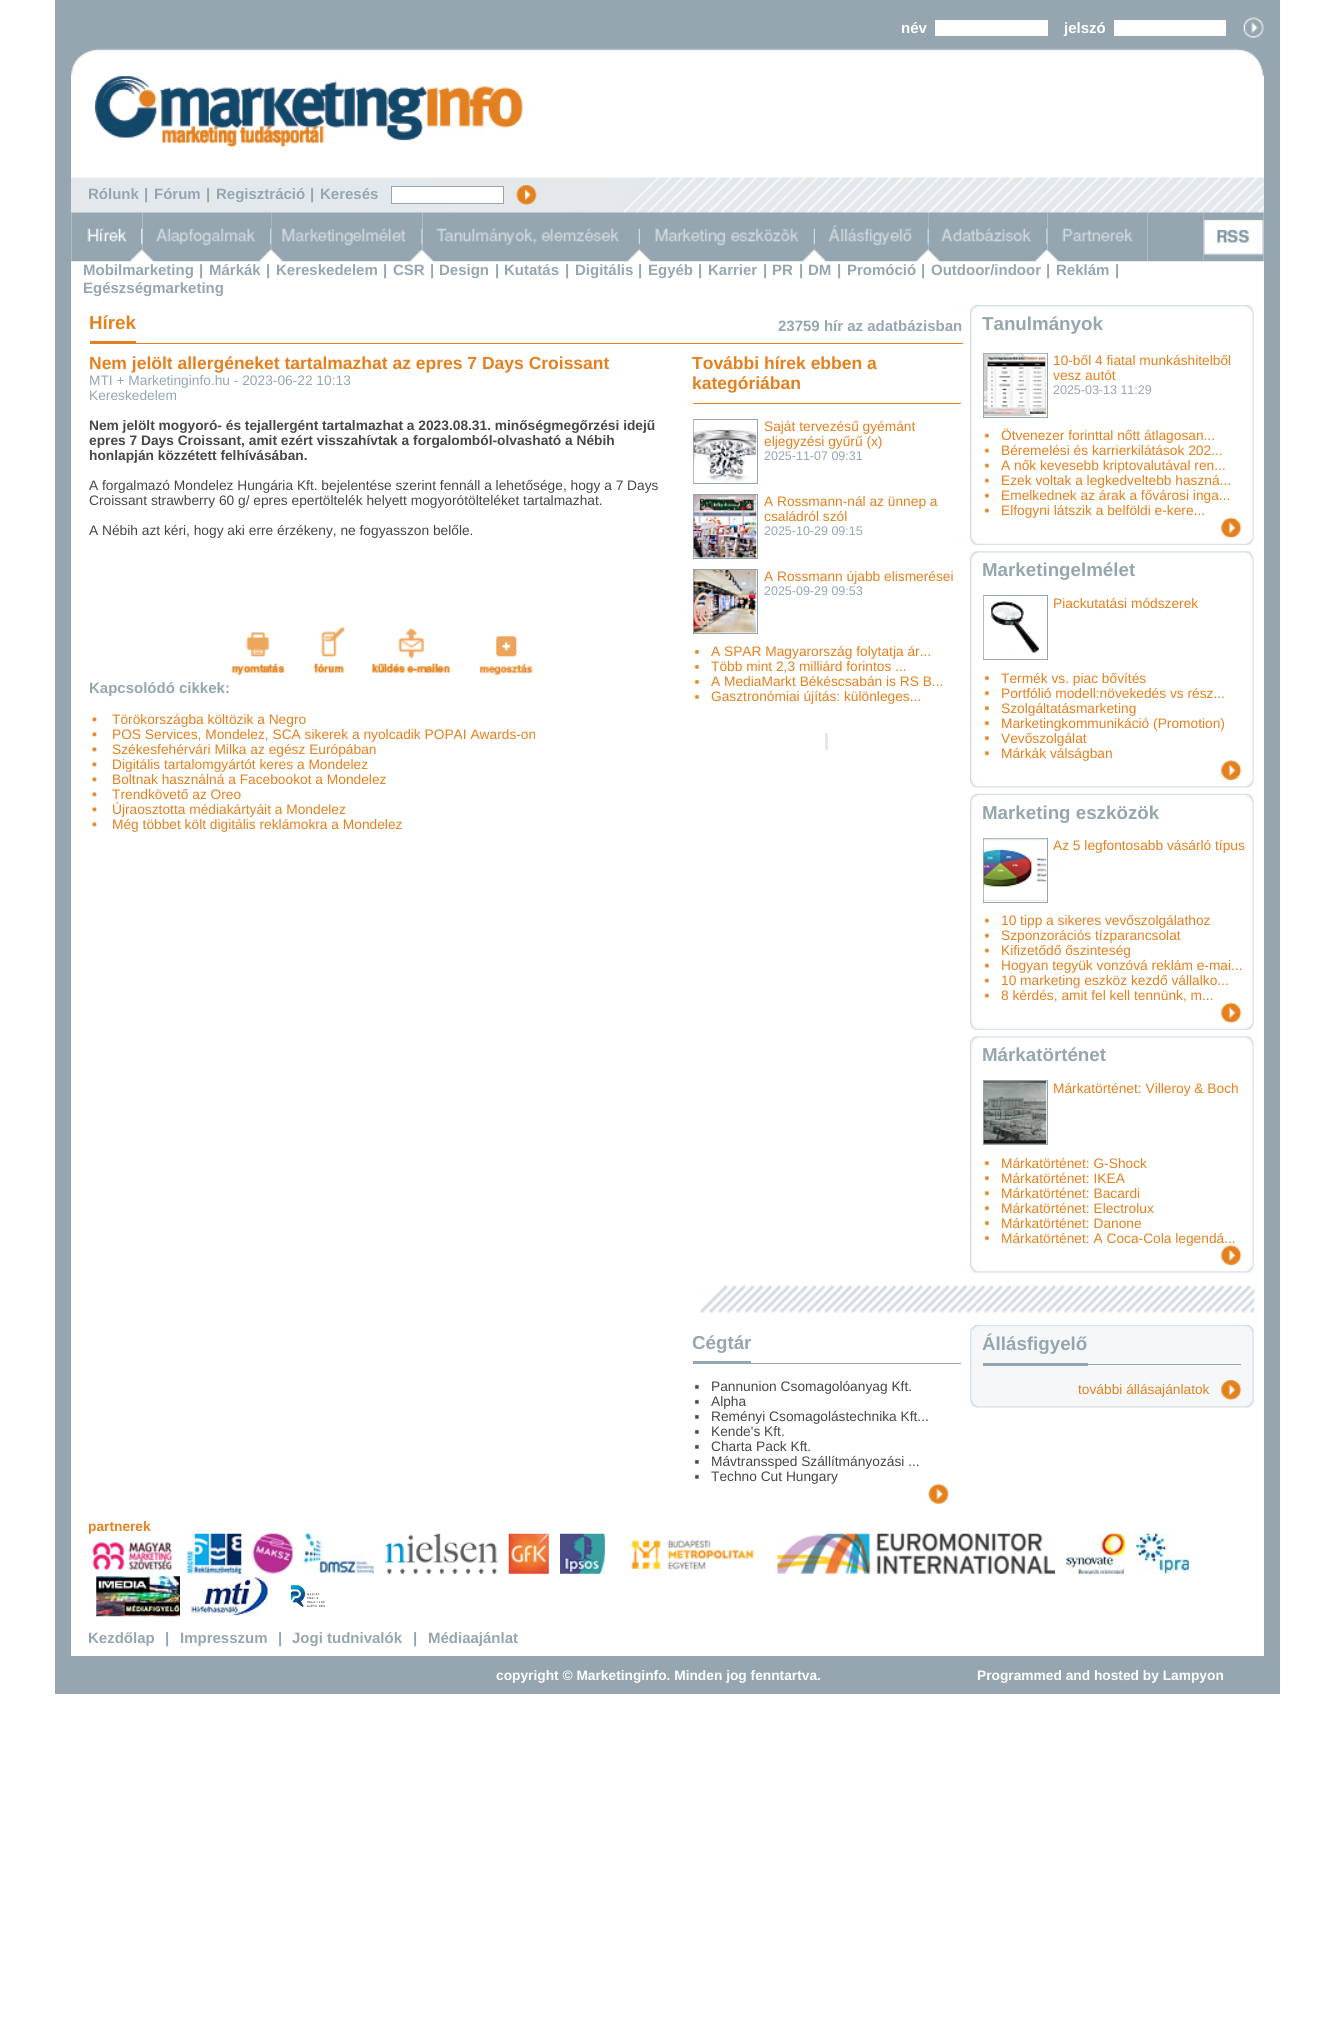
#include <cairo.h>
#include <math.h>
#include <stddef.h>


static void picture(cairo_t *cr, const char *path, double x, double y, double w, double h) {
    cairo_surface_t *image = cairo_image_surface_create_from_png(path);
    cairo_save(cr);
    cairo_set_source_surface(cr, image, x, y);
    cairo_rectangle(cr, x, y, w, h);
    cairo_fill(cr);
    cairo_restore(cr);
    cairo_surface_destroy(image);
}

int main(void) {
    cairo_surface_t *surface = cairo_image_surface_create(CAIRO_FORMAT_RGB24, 1333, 2042);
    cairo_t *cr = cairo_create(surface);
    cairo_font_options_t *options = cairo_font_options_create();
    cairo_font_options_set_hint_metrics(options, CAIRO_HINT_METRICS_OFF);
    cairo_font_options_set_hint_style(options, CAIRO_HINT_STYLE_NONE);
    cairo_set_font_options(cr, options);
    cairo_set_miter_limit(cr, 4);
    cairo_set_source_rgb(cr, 1, 1, 1);
    cairo_paint(cr);
    cairo_set_source_rgb(cr, 0.584, 0.651, 0.69);
    cairo_rectangle(cr, 55, 0, 1225, 1694);
    cairo_fill(cr);
    cairo_select_font_face(cr, "Liberation Sans", CAIRO_FONT_SLANT_NORMAL, CAIRO_FONT_WEIGHT_BOLD);
    cairo_set_font_size(cr, 15);
    cairo_set_source_rgb(cr, 1, 1, 1);
    cairo_move_to(cr, 901, 33);
    cairo_show_text(cr, "név");
    cairo_rectangle(cr, 935, 20, 113, 16);
    cairo_fill(cr);
    cairo_move_to(cr, 1064, 33);
    cairo_show_text(cr, "jelszó");
    cairo_rectangle(cr, 1114, 20, 112, 16);
    cairo_fill(cr);
    picture(cr, "img1.png", 1243, 17, 21, 21);
    picture(cr, "img2.png", 71, 48, 1193, 28);
    cairo_rectangle(cr, 71, 76, 1193, 102);
    cairo_fill(cr);
    picture(cr, "img3.png", 95, 76, 428, 71);
    cairo_set_source_rgb(cr, 0.89, 0.91, 0.925);
    cairo_rectangle(cr, 71, 178, 1193, 35);
    cairo_fill(cr);
    picture(cr, "img4.png", 71, 177, 1193, 36);
    cairo_set_source_rgb(cr, 0.584, 0.651, 0.69);
    cairo_move_to(cr, 88, 199);
    cairo_show_text(cr, "Rólunk");
    cairo_move_to(cr, 144, 199);
    cairo_show_text(cr, "|");
    cairo_move_to(cr, 154, 199);
    cairo_show_text(cr, "Fórum");
    cairo_move_to(cr, 206, 199);
    cairo_show_text(cr, "|");
    cairo_move_to(cr, 216, 199);
    cairo_show_text(cr, "Regisztráció");
    cairo_move_to(cr, 310, 199);
    cairo_show_text(cr, "|");
    cairo_move_to(cr, 320, 199);
    cairo_show_text(cr, "Keresés");
    cairo_set_source_rgb(cr, 1, 1, 1);
    cairo_rectangle(cr, 391.5, 186.5, 112, 17);
    cairo_fill_preserve(cr);
    cairo_set_source_rgb(cr, 0.584, 0.651, 0.69);
    cairo_set_line_width(cr, 1);
    cairo_stroke(cr);
    picture(cr, "img5.png", 516, 185, 21, 20);
    cairo_set_source_rgb(cr, 1, 1, 1);
    cairo_rectangle(cr, 71, 213, 1193, 1443);
    cairo_fill(cr);
    picture(cr, "img6.png", 71, 212, 72, 50);
    picture(cr, "img7.png", 142, 212, 130, 50);
    picture(cr, "img8.png", 271, 212, 152, 50);
    picture(cr, "img9.png", 422, 212, 218, 50);
    picture(cr, "img10.png", 640, 212, 175, 50);
    picture(cr, "img11.png", 815, 212, 114, 50);
    picture(cr, "img12.png", 928, 212, 120, 50);
    picture(cr, "img13.png", 1047, 212, 101, 50);
    picture(cr, "img14.png", 1147, 212, 57, 50);
    picture(cr, "img15.png", 1203, 212, 61, 50);
    cairo_set_source_rgb(cr, 0.584, 0.651, 0.69);
    cairo_move_to(cr, 83, 275);
    cairo_show_text(cr, "Mobilmarketing");
    cairo_move_to(cr, 199, 275);
    cairo_show_text(cr, "|");
    cairo_move_to(cr, 209, 275);
    cairo_show_text(cr, "Márkák");
    cairo_move_to(cr, 266, 275);
    cairo_show_text(cr, "|");
    cairo_move_to(cr, 276, 275);
    cairo_show_text(cr, "Kereskedelem");
    cairo_move_to(cr, 383, 275);
    cairo_show_text(cr, "|");
    cairo_move_to(cr, 393, 275);
    cairo_show_text(cr, "CSR");
    cairo_move_to(cr, 430, 275);
    cairo_show_text(cr, "|");
    cairo_move_to(cr, 439, 275);
    cairo_show_text(cr, "Design");
    cairo_move_to(cr, 495, 275);
    cairo_show_text(cr, "|");
    cairo_move_to(cr, 504, 275);
    cairo_show_text(cr, "Kutatás");
    cairo_move_to(cr, 565, 275);
    cairo_show_text(cr, "|");
    cairo_move_to(cr, 575, 275);
    cairo_show_text(cr, "Digitális");
    cairo_move_to(cr, 638, 275);
    cairo_show_text(cr, "|");
    cairo_move_to(cr, 648, 275);
    cairo_show_text(cr, "Egyéb");
    cairo_move_to(cr, 698, 275);
    cairo_show_text(cr, "|");
    cairo_move_to(cr, 708, 275);
    cairo_show_text(cr, "Karrier");
    cairo_move_to(cr, 763, 275);
    cairo_show_text(cr, "|");
    cairo_move_to(cr, 772, 275);
    cairo_show_text(cr, "PR");
    cairo_move_to(cr, 799, 275);
    cairo_show_text(cr, "|");
    cairo_move_to(cr, 808, 275);
    cairo_show_text(cr, "DM");
    cairo_move_to(cr, 837, 275);
    cairo_show_text(cr, "|");
    cairo_move_to(cr, 847, 275);
    cairo_show_text(cr, "Promóció");
    cairo_move_to(cr, 921, 275);
    cairo_show_text(cr, "|");
    cairo_move_to(cr, 931, 275);
    cairo_show_text(cr, "Outdoor/indoor");
    cairo_move_to(cr, 1046, 275);
    cairo_show_text(cr, "|");
    cairo_move_to(cr, 1056, 275);
    cairo_show_text(cr, "Reklám");
    cairo_move_to(cr, 1115, 275);
    cairo_show_text(cr, "|");
    cairo_move_to(cr, 83, 293);
    cairo_show_text(cr, "Egészségmarketing");
    cairo_set_source_rgb(cr, 0.894, 0.502, 0.118);
    cairo_rectangle(cr, 136, 343, 827, 1);
    cairo_fill(cr);
    cairo_rectangle(cr, 90, 341, 46, 3);
    cairo_fill(cr);
    cairo_set_font_size(cr, 18.75);
    cairo_move_to(cr, 89, 329);
    cairo_show_text(cr, "Hírek");
    cairo_set_font_size(cr, 15);
    cairo_set_source_rgb(cr, 0.584, 0.651, 0.69);
    cairo_move_to(cr, 778, 331);
    cairo_show_text(cr, "23759 hír az adatbázisban");
    picture(cr, "img17.png", 970, 312, 284, 41);
    picture(cr, "img16.png", 970, 305, 284, 8);
    cairo_set_font_size(cr, 18.75);
    cairo_move_to(cr, 982, 330);
    cairo_show_text(cr, "Tanulmányok");
    cairo_set_font_size(cr, 17.5);
    cairo_set_source_rgb(cr, 0.894, 0.502, 0.118);
    cairo_move_to(cr, 89, 369);
    cairo_show_text(cr, "Nem jelölt allergéneket tartalmazhat az epres 7 Days Croissant");
    cairo_select_font_face(cr, "Liberation Sans", CAIRO_FONT_SLANT_NORMAL, CAIRO_FONT_WEIGHT_NORMAL);
    cairo_set_font_size(cr, 13.75);
    cairo_set_source_rgb(cr, 0.584, 0.651, 0.69);
    cairo_move_to(cr, 89, 385);
    cairo_show_text(cr, "MTI + Marketinginfo.hu - 2023-06-22 10:13");
    cairo_move_to(cr, 89, 400);
    cairo_show_text(cr, "Kereskedelem");
    cairo_select_font_face(cr, "Liberation Sans", CAIRO_FONT_SLANT_NORMAL, CAIRO_FONT_WEIGHT_BOLD);
    cairo_set_source_rgb(cr, 0.275, 0.275, 0.294);
    cairo_move_to(cr, 89, 430);
    cairo_show_text(cr, "Nem jelölt mogyoró- és tejallergént tartalmazhat a 2023.08.31. minőségmegőrzési idejű");
    cairo_move_to(cr, 89, 445);
    cairo_show_text(cr, "epres 7 Days Croissant, amit ezért visszahívtak a forgalomból-olvasható a Nébih");
    cairo_move_to(cr, 89, 460);
    cairo_show_text(cr, "honlapján közzétett felhívásában.");
    cairo_select_font_face(cr, "Liberation Sans", CAIRO_FONT_SLANT_NORMAL, CAIRO_FONT_WEIGHT_NORMAL);
    cairo_move_to(cr, 89, 490);
    cairo_show_text(cr, "A forgalmazó Mondelez Hungária Kft. bejelentése szerint fennáll a lehetősége, hogy a 7 Days");
    cairo_move_to(cr, 89, 505);
    cairo_show_text(cr, "Croissant strawberry 60 g/ epres epertöltelék helyett mogyorótölteléket tartalmazhat.");
    cairo_move_to(cr, 89, 535);
    cairo_show_text(cr, "A Nébih azt kéri, hogy aki erre érzékeny, ne fogyasszon belőle.");
    picture(cr, "img18.png", 232, 632, 53, 44);
    picture(cr, "img19.png", 313, 627, 32, 46);
    picture(cr, "img20.png", 372, 628, 79, 47);
    picture(cr, "img21.png", 479, 636, 54, 40);
    cairo_select_font_face(cr, "Liberation Sans", CAIRO_FONT_SLANT_NORMAL, CAIRO_FONT_WEIGHT_BOLD);
    cairo_set_font_size(cr, 15);
    cairo_set_source_rgb(cr, 0.584, 0.651, 0.69);
    cairo_move_to(cr, 89, 693);
    cairo_show_text(cr, "Kapcsolódó cikkek:");
    picture(cr, "img22.png", 92, 717, 5, 5);
    cairo_select_font_face(cr, "Liberation Sans", CAIRO_FONT_SLANT_NORMAL, CAIRO_FONT_WEIGHT_NORMAL);
    cairo_set_font_size(cr, 13.75);
    cairo_set_source_rgb(cr, 0.894, 0.502, 0.118);
    cairo_move_to(cr, 112, 724);
    cairo_show_text(cr, "Törökországba költözik a Negro");
    picture(cr, "img22.png", 92, 732, 5, 5);
    cairo_move_to(cr, 112, 739);
    cairo_show_text(cr, "POS Services, Mondelez, SCA sikerek a nyolcadik POPAI Awards-on");
    picture(cr, "img22.png", 92, 747, 5, 5);
    cairo_move_to(cr, 112, 754);
    cairo_show_text(cr, "Székesfehérvári Milka az egész Európában");
    picture(cr, "img22.png", 92, 762, 5, 5);
    cairo_move_to(cr, 112, 769);
    cairo_show_text(cr, "Digitális tartalomgyártót keres a Mondelez");
    picture(cr, "img22.png", 92, 777, 5, 5);
    cairo_move_to(cr, 112, 784);
    cairo_show_text(cr, "Boltnak használná a Facebookot a Mondelez");
    picture(cr, "img22.png", 92, 792, 5, 5);
    cairo_move_to(cr, 112, 799);
    cairo_show_text(cr, "Trendkövető az Oreo");
    picture(cr, "img22.png", 92, 807, 5, 5);
    cairo_move_to(cr, 112, 814);
    cairo_show_text(cr, "Újraosztotta médiakártyáit a Mondelez");
    picture(cr, "img22.png", 92, 822, 5, 5);
    cairo_move_to(cr, 112, 829);
    cairo_show_text(cr, "Még többet költ digitális reklámokra a Mondelez");
    cairo_rectangle(cr, 693, 403, 268, 1);
    cairo_fill(cr);
    cairo_select_font_face(cr, "Liberation Sans", CAIRO_FONT_SLANT_NORMAL, CAIRO_FONT_WEIGHT_BOLD);
    cairo_set_font_size(cr, 17.5);
    cairo_move_to(cr, 692, 369);
    cairo_show_text(cr, "További hírek ebben a");
    cairo_move_to(cr, 692, 389);
    cairo_show_text(cr, "kategóriában");
    cairo_rectangle(cr, 693.5, 419.5, 64, 64);
    cairo_set_source_rgb(cr, 0.584, 0.651, 0.69);
    cairo_stroke(cr);
    picture(cr, "img23.png", 693, 420, 64, 63);
    cairo_select_font_face(cr, "Liberation Sans", CAIRO_FONT_SLANT_NORMAL, CAIRO_FONT_WEIGHT_NORMAL);
    cairo_set_font_size(cr, 13.75);
    cairo_set_source_rgb(cr, 0.894, 0.502, 0.118);
    cairo_move_to(cr, 764, 431);
    cairo_show_text(cr, "Saját tervezésű gyémánt");
    cairo_move_to(cr, 764, 446);
    cairo_show_text(cr, "eljegyzési gyűrű (x)");
    cairo_set_font_size(cr, 12.5);
    cairo_set_source_rgb(cr, 0.584, 0.651, 0.69);
    cairo_move_to(cr, 764, 460);
    cairo_show_text(cr, "2025-11-07 09:31");
    cairo_rectangle(cr, 693.5, 494.5, 64, 64);
    cairo_stroke(cr);
    picture(cr, "img24.png", 693, 495, 64, 63);
    cairo_set_font_size(cr, 13.75);
    cairo_set_source_rgb(cr, 0.894, 0.502, 0.118);
    cairo_move_to(cr, 764, 506);
    cairo_show_text(cr, "A Rossmann-nál az ünnep a");
    cairo_move_to(cr, 764, 521);
    cairo_show_text(cr, "családról szól");
    cairo_set_font_size(cr, 12.5);
    cairo_set_source_rgb(cr, 0.584, 0.651, 0.69);
    cairo_move_to(cr, 764, 535);
    cairo_show_text(cr, "2025-10-29 09:15");
    cairo_rectangle(cr, 693.5, 569.5, 64, 64);
    cairo_stroke(cr);
    picture(cr, "img25.png", 693, 570, 64, 63);
    cairo_set_font_size(cr, 13.75);
    cairo_set_source_rgb(cr, 0.894, 0.502, 0.118);
    cairo_move_to(cr, 764, 581);
    cairo_show_text(cr, "A Rossmann újabb elismerései");
    cairo_set_font_size(cr, 12.5);
    cairo_set_source_rgb(cr, 0.584, 0.651, 0.69);
    cairo_move_to(cr, 764, 595);
    cairo_show_text(cr, "2025-09-29 09:53");
    picture(cr, "img26.png", 694, 649, 6, 6);
    cairo_set_font_size(cr, 13.75);
    cairo_set_source_rgb(cr, 0.894, 0.502, 0.118);
    cairo_move_to(cr, 711, 656);
    cairo_show_text(cr, "A SPAR Magyarország folytatja ár...");
    picture(cr, "img26.png", 694, 664, 6, 6);
    cairo_move_to(cr, 711, 671);
    cairo_show_text(cr, "Több mint 2,3 milliárd forintos ...");
    picture(cr, "img26.png", 694, 679, 6, 6);
    cairo_move_to(cr, 711, 686);
    cairo_show_text(cr, "A MediaMarkt Békéscsabán is RS B...");
    picture(cr, "img26.png", 694, 694, 6, 6);
    cairo_move_to(cr, 711, 701);
    cairo_show_text(cr, "Gasztronómiai újítás: különleges...");
    cairo_set_source_rgb(cr, 0.89, 0.91, 0.925);
    cairo_rectangle(cr, 825, 733, 3, 17);
    cairo_fill(cr);
    picture(cr, "img27.png", 970, 352, 284, 186);
    cairo_rectangle(cr, 983.5, 353.5, 64, 64);
    cairo_set_source_rgb(cr, 0.584, 0.651, 0.69);
    cairo_stroke(cr);
    picture(cr, "img28.png", 983, 353, 64, 64);
    cairo_set_source_rgb(cr, 0.894, 0.502, 0.118);
    cairo_move_to(cr, 1053, 365);
    cairo_show_text(cr, "10-ből 4 fiatal munkáshitelből");
    cairo_move_to(cr, 1053, 380);
    cairo_show_text(cr, "vesz autót");
    cairo_set_font_size(cr, 12.5);
    cairo_set_source_rgb(cr, 0.584, 0.651, 0.69);
    cairo_move_to(cr, 1053, 394);
    cairo_show_text(cr, "2025-03-13 11:29");
    picture(cr, "img29.png", 984, 433, 5, 7);
    cairo_set_font_size(cr, 13.75);
    cairo_set_source_rgb(cr, 0.894, 0.502, 0.118);
    cairo_move_to(cr, 1001, 440);
    cairo_show_text(cr, "Ötvenezer forinttal nőtt átlagosan...");
    picture(cr, "img29.png", 984, 448, 5, 7);
    cairo_move_to(cr, 1001, 455);
    cairo_show_text(cr, "Béremelési és karrierkilátások 202...");
    picture(cr, "img29.png", 984, 463, 5, 7);
    cairo_move_to(cr, 1001, 470);
    cairo_show_text(cr, "A nők kevesebb kriptovalutával ren...");
    picture(cr, "img29.png", 984, 478, 5, 7);
    cairo_move_to(cr, 1001, 485);
    cairo_show_text(cr, "Ezek voltak a legkedveltebb haszná...");
    picture(cr, "img29.png", 984, 493, 5, 7);
    cairo_move_to(cr, 1001, 500);
    cairo_show_text(cr, "Emelkednek az árak a fővárosi inga...");
    picture(cr, "img29.png", 984, 508, 5, 7);
    cairo_move_to(cr, 1001, 515);
    cairo_show_text(cr, "Elfogyni látszik a belföldi e-kere...");
    picture(cr, "img30.png", 1221, 517, 21, 21);
    picture(cr, "img31.png", 970, 537, 284, 8);
    picture(cr, "img33.png", 970, 558, 284, 222);
    picture(cr, "img32.png", 970, 551, 284, 8);
    cairo_select_font_face(cr, "Liberation Sans", CAIRO_FONT_SLANT_NORMAL, CAIRO_FONT_WEIGHT_BOLD);
    cairo_set_font_size(cr, 18.75);
    cairo_set_source_rgb(cr, 0.584, 0.651, 0.69);
    cairo_move_to(cr, 982, 576);
    cairo_show_text(cr, "Marketingelmélet");
    cairo_rectangle(cr, 983.5, 595.5, 64, 64);
    cairo_stroke(cr);
    picture(cr, "img34.png", 983, 596, 56, 63);
    cairo_select_font_face(cr, "Liberation Sans", CAIRO_FONT_SLANT_NORMAL, CAIRO_FONT_WEIGHT_NORMAL);
    cairo_set_font_size(cr, 13.75);
    cairo_set_source_rgb(cr, 0.894, 0.502, 0.118);
    cairo_move_to(cr, 1053, 608);
    cairo_show_text(cr, "Piackutatási módszerek");
    picture(cr, "img35.png", 984, 676, 6, 5);
    cairo_move_to(cr, 1001, 683);
    cairo_show_text(cr, "Termék vs. piac bővítés");
    picture(cr, "img35.png", 984, 691, 6, 5);
    cairo_move_to(cr, 1001, 698);
    cairo_show_text(cr, "Portfólió modell:növekedés vs rész...");
    picture(cr, "img35.png", 984, 706, 6, 5);
    cairo_move_to(cr, 1001, 713);
    cairo_show_text(cr, "Szolgáltatásmarketing");
    picture(cr, "img35.png", 984, 721, 6, 5);
    cairo_move_to(cr, 1001, 728);
    cairo_show_text(cr, "Marketingkommunikáció (Promotion)");
    picture(cr, "img35.png", 984, 736, 6, 5);
    cairo_move_to(cr, 1001, 743);
    cairo_show_text(cr, "Vevőszolgálat");
    picture(cr, "img35.png", 984, 751, 6, 5);
    cairo_move_to(cr, 1001, 758);
    cairo_show_text(cr, "Márkák válságban");
    picture(cr, "img36.png", 1221, 760, 21, 20);
    picture(cr, "img37.png", 970, 780, 284, 8);
    picture(cr, "img39.png", 970, 801, 284, 222);
    picture(cr, "img38.png", 970, 793, 284, 9);
    cairo_select_font_face(cr, "Liberation Sans", CAIRO_FONT_SLANT_NORMAL, CAIRO_FONT_WEIGHT_BOLD);
    cairo_set_font_size(cr, 18.75);
    cairo_set_source_rgb(cr, 0.584, 0.651, 0.69);
    cairo_move_to(cr, 982, 819);
    cairo_show_text(cr, "Marketing eszközök");
    cairo_rectangle(cr, 983.5, 838.5, 64, 64);
    cairo_stroke(cr);
    picture(cr, "img40.png", 983, 838, 64, 64);
    cairo_select_font_face(cr, "Liberation Sans", CAIRO_FONT_SLANT_NORMAL, CAIRO_FONT_WEIGHT_NORMAL);
    cairo_set_font_size(cr, 13.75);
    cairo_set_source_rgb(cr, 0.894, 0.502, 0.118);
    cairo_move_to(cr, 1053, 850);
    cairo_show_text(cr, "Az 5 legfontosabb vásárló típus");
    picture(cr, "img29.png", 984, 918, 5, 7);
    cairo_move_to(cr, 1001, 925);
    cairo_show_text(cr, "10 tipp a sikeres vevőszolgálathoz");
    picture(cr, "img29.png", 984, 933, 5, 7);
    cairo_move_to(cr, 1001, 940);
    cairo_show_text(cr, "Szponzorációs tízparancsolat");
    picture(cr, "img29.png", 984, 948, 5, 7);
    cairo_move_to(cr, 1001, 955);
    cairo_show_text(cr, "Kifizetődő őszinteség");
    picture(cr, "img29.png", 984, 963, 5, 7);
    cairo_move_to(cr, 1001, 970);
    cairo_show_text(cr, "Hogyan tegyük vonzóvá reklám e-mai...");
    picture(cr, "img29.png", 984, 978, 5, 7);
    cairo_move_to(cr, 1001, 985);
    cairo_show_text(cr, "10 marketing eszköz kezdő vállalko...");
    picture(cr, "img29.png", 984, 993, 5, 7);
    cairo_move_to(cr, 1001, 1000);
    cairo_show_text(cr, "8 kérdés, amit fel kell tennünk, m...");
    picture(cr, "img30.png", 1221, 1002, 21, 21);
    picture(cr, "img41.png", 970, 1022, 284, 8);
    picture(cr, "img33.png", 970, 1043, 284, 222);
    picture(cr, "img32.png", 970, 1036, 284, 8);
    cairo_select_font_face(cr, "Liberation Sans", CAIRO_FONT_SLANT_NORMAL, CAIRO_FONT_WEIGHT_BOLD);
    cairo_set_font_size(cr, 18.75);
    cairo_set_source_rgb(cr, 0.584, 0.651, 0.69);
    cairo_move_to(cr, 982, 1061);
    cairo_show_text(cr, "Márkatörténet");
    cairo_rectangle(cr, 983.5, 1080.5, 64, 64);
    cairo_stroke(cr);
    picture(cr, "img42.png", 983, 1081, 64, 63);
    cairo_select_font_face(cr, "Liberation Sans", CAIRO_FONT_SLANT_NORMAL, CAIRO_FONT_WEIGHT_NORMAL);
    cairo_set_font_size(cr, 13.75);
    cairo_set_source_rgb(cr, 0.894, 0.502, 0.118);
    cairo_move_to(cr, 1053, 1093);
    cairo_show_text(cr, "Márkatörténet: Villeroy & Boch");
    picture(cr, "img35.png", 984, 1161, 6, 5);
    cairo_move_to(cr, 1001, 1168);
    cairo_show_text(cr, "Márkatörténet: G-Shock");
    picture(cr, "img43.png", 984, 1176, 6, 5);
    cairo_move_to(cr, 1001, 1183);
    cairo_show_text(cr, "Márkatörténet: IKEA");
    picture(cr, "img35.png", 984, 1191, 6, 5);
    cairo_move_to(cr, 1001, 1198);
    cairo_show_text(cr, "Márkatörténet: Bacardi");
    picture(cr, "img35.png", 984, 1206, 6, 5);
    cairo_move_to(cr, 1001, 1213);
    cairo_show_text(cr, "Márkatörténet: Electrolux");
    picture(cr, "img35.png", 984, 1221, 6, 5);
    cairo_move_to(cr, 1001, 1228);
    cairo_show_text(cr, "Márkatörténet: Danone");
    picture(cr, "img35.png", 984, 1236, 6, 5);
    picture(cr, "img36.png", 1221, 1245, 21, 20);
    cairo_move_to(cr, 1001, 1243);
    cairo_show_text(cr, "Márkatörténet: A Coca-Cola legendá...");
    picture(cr, "img44.png", 970, 1265, 284, 8);
    picture(cr, "img45.png", 700, 1285, 555, 28);
    cairo_set_source_rgb(cr, 0.584, 0.651, 0.69);
    cairo_rectangle(cr, 751, 1363, 210, 1);
    cairo_fill(cr);
    cairo_rectangle(cr, 693, 1361, 58, 3);
    cairo_fill(cr);
    cairo_select_font_face(cr, "Liberation Sans", CAIRO_FONT_SLANT_NORMAL, CAIRO_FONT_WEIGHT_BOLD);
    cairo_set_font_size(cr, 18.75);
    cairo_move_to(cr, 692, 1349);
    cairo_show_text(cr, "Cégtár");
    picture(cr, "img46.png", 694, 1384, 6, 6);
    cairo_select_font_face(cr, "Liberation Sans", CAIRO_FONT_SLANT_NORMAL, CAIRO_FONT_WEIGHT_NORMAL);
    cairo_set_font_size(cr, 13.75);
    cairo_set_source_rgb(cr, 0.275, 0.275, 0.294);
    cairo_move_to(cr, 711, 1391);
    cairo_show_text(cr, "Pannunion Csomagolóanyag Kft.");
    picture(cr, "img46.png", 694, 1399, 6, 6);
    cairo_move_to(cr, 711, 1406);
    cairo_show_text(cr, "Alpha");
    picture(cr, "img46.png", 694, 1414, 6, 6);
    cairo_move_to(cr, 711, 1421);
    cairo_show_text(cr, "Reményi Csomagolástechnika Kft...");
    picture(cr, "img46.png", 694, 1429, 6, 6);
    cairo_move_to(cr, 711, 1436);
    cairo_show_text(cr, "Kende's Kft.");
    picture(cr, "img46.png", 694, 1444, 6, 6);
    cairo_move_to(cr, 711, 1451);
    cairo_show_text(cr, "Charta Pack Kft.");
    picture(cr, "img46.png", 694, 1459, 6, 6);
    cairo_move_to(cr, 711, 1466);
    cairo_show_text(cr, "Mávtranssped Szállítmányozási ...");
    picture(cr, "img46.png", 694, 1474, 6, 6);
    cairo_move_to(cr, 711, 1481);
    cairo_show_text(cr, "Techno Cut Hungary");
    picture(cr, "img47.png", 928, 1483, 21, 21);
    picture(cr, "img49.png", 970, 1332, 284, 68);
    picture(cr, "img48.png", 970, 1325, 284, 8);
    cairo_set_source_rgb(cr, 0.584, 0.651, 0.69);
    cairo_rectangle(cr, 1088, 1364, 153, 1);
    cairo_fill(cr);
    cairo_rectangle(cr, 983, 1363, 105, 3);
    cairo_fill(cr);
    cairo_select_font_face(cr, "Liberation Sans", CAIRO_FONT_SLANT_NORMAL, CAIRO_FONT_WEIGHT_BOLD);
    cairo_set_font_size(cr, 18.75);
    cairo_move_to(cr, 982, 1350);
    cairo_show_text(cr, "Állásfigyelő");
    cairo_select_font_face(cr, "Liberation Sans", CAIRO_FONT_SLANT_NORMAL, CAIRO_FONT_WEIGHT_NORMAL);
    cairo_set_font_size(cr, 13.75);
    cairo_set_source_rgb(cr, 0.894, 0.502, 0.118);
    cairo_move_to(cr, 1078, 1394);
    cairo_show_text(cr, "további állásajánlatok");
    picture(cr, "img50.png", 1221, 1380, 21, 20);
    picture(cr, "img51.png", 970, 1400, 284, 8);
    cairo_select_font_face(cr, "Liberation Sans", CAIRO_FONT_SLANT_NORMAL, CAIRO_FONT_WEIGHT_BOLD);
    cairo_move_to(cr, 88, 1531);
    cairo_show_text(cr, "partnerek");
    picture(cr, "img52.png", 89, 1539, 84, 35);
    picture(cr, "img53.png", 187, 1533, 55, 41);
    picture(cr, "img54.png", 252, 1533, 41, 41);
    picture(cr, "img55.png", 303, 1533, 71, 41);
    picture(cr, "img56.png", 385, 1533, 113, 41);
    picture(cr, "img57.png", 508, 1533, 41, 41);
    picture(cr, "img58.png", 560, 1533, 45, 41);
    picture(cr, "img59.png", 631, 1540, 123, 30);
    picture(cr, "img60.png", 777, 1533, 278, 41);
    picture(cr, "img61.png", 1066, 1533, 59, 41);
    picture(cr, "img62.png", 1136, 1533, 53, 41);
    picture(cr, "img63.png", 96, 1576, 84, 41);
    picture(cr, "img64.png", 191, 1576, 78, 40);
    picture(cr, "img65.png", 290, 1585, 35, 22);
    cairo_set_font_size(cr, 15);
    cairo_set_source_rgb(cr, 0.584, 0.651, 0.69);
    cairo_move_to(cr, 88, 1643);
    cairo_show_text(cr, "Kezdőlap");
    cairo_move_to(cr, 165, 1643);
    cairo_show_text(cr, "|");
    cairo_move_to(cr, 180, 1643);
    cairo_show_text(cr, "Impresszum");
    cairo_move_to(cr, 278, 1643);
    cairo_show_text(cr, "|");
    cairo_move_to(cr, 292, 1643);
    cairo_show_text(cr, "Jogi tudnivalók");
    cairo_move_to(cr, 413, 1643);
    cairo_show_text(cr, "|");
    cairo_move_to(cr, 428, 1643);
    cairo_show_text(cr, "Médiaajánlat");
    cairo_set_font_size(cr, 13.75);
    cairo_set_source_rgb(cr, 1, 1, 1);
    cairo_move_to(cr, 496, 1680);
    cairo_show_text(cr, "copyright © Marketinginfo. Minden jog fenntartva.");
    cairo_move_to(cr, 977, 1680);
    cairo_show_text(cr, "Programmed and hosted by Lampyon");
    cairo_surface_write_to_png(surface, "page.png");
    cairo_font_options_destroy(options);
    cairo_destroy(cr);
    cairo_surface_destroy(surface);
    return 0;
}
